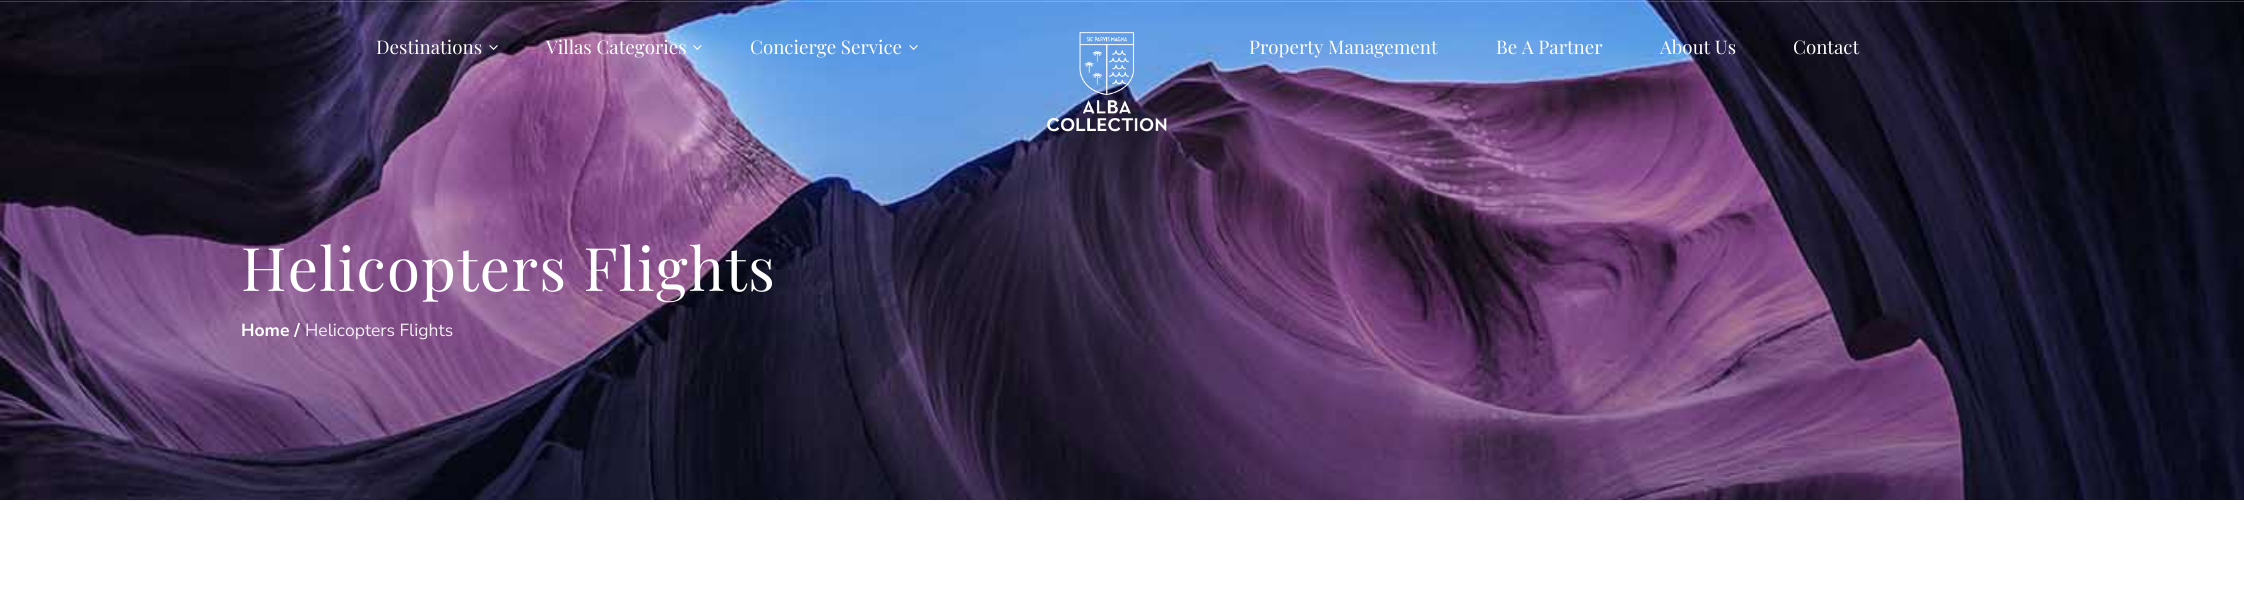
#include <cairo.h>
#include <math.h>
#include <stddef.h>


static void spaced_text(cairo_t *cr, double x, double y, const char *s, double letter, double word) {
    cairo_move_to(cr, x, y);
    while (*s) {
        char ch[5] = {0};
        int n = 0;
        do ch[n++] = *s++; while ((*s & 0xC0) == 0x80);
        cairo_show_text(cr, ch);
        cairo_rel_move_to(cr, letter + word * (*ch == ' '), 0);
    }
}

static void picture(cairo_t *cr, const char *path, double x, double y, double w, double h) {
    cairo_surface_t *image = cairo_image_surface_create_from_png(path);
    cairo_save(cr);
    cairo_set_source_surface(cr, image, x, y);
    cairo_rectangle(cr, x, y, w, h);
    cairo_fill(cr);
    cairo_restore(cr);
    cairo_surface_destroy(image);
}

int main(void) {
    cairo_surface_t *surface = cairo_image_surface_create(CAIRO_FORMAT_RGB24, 2244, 610);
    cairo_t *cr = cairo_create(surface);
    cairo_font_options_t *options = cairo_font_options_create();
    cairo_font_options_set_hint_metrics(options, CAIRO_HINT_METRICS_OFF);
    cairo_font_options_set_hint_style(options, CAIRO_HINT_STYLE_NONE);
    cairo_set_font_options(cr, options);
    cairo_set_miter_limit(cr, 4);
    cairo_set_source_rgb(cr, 1, 1, 1);
    cairo_paint(cr);
    picture(cr, "img5.png", 0, 0, 2244, 500);
    cairo_set_source_rgba(cr, 1, 1, 1, 0.2);
    cairo_rectangle(cr, 0, 1, 2244, 1);
    cairo_fill(cr);
    cairo_select_font_face(cr, "Playfair Display", CAIRO_FONT_SLANT_NORMAL, CAIRO_FONT_WEIGHT_NORMAL);
    cairo_set_font_size(cr, 18.75);
    cairo_set_source_rgb(cr, 1, 1, 1);
    cairo_move_to(cr, 376, 54);
    cairo_show_text(cr, "Destinations");
    picture(cr, "img1.png", 489, 45, 9, 5);
    cairo_move_to(cr, 546, 54);
    cairo_show_text(cr, "Villas Categories");
    picture(cr, "img2.png", 693, 45, 9, 5);
    cairo_move_to(cr, 750, 54);
    cairo_show_text(cr, "Concierge Service");
    picture(cr, "img3.png", 909, 45, 9, 5);
    picture(cr, "img4.png", 1047, 32, 120, 100);
    cairo_move_to(cr, 1249, 54);
    cairo_show_text(cr, "Property Management");
    cairo_move_to(cr, 1496, 54);
    cairo_show_text(cr, "Be A Partner");
    cairo_move_to(cr, 1660, 54);
    cairo_show_text(cr, "About Us");
    cairo_move_to(cr, 1793, 54);
    cairo_show_text(cr, "Contact");
    cairo_set_font_size(cr, 60);
    spaced_text(cr, 241, 291, "Helicopters Flights", 1.25, 0);
    cairo_select_font_face(cr, "Nunito Sans", CAIRO_FONT_SLANT_NORMAL, CAIRO_FONT_WEIGHT_BOLD);
    cairo_set_font_size(cr, 17.5);
    cairo_move_to(cr, 241, 336);
    cairo_show_text(cr, "Home /");
    cairo_select_font_face(cr, "Nunito Sans ExtraLight", CAIRO_FONT_SLANT_NORMAL, CAIRO_FONT_WEIGHT_NORMAL);
    cairo_set_source_rgb(cr, 0.953, 0.933, 0.957);
    cairo_move_to(cr, 305, 336);
    cairo_show_text(cr, "Helicopters Flights");
    cairo_surface_write_to_png(surface, "page.png");
    cairo_font_options_destroy(options);
    cairo_destroy(cr);
    cairo_surface_destroy(surface);
    return 0;
}
